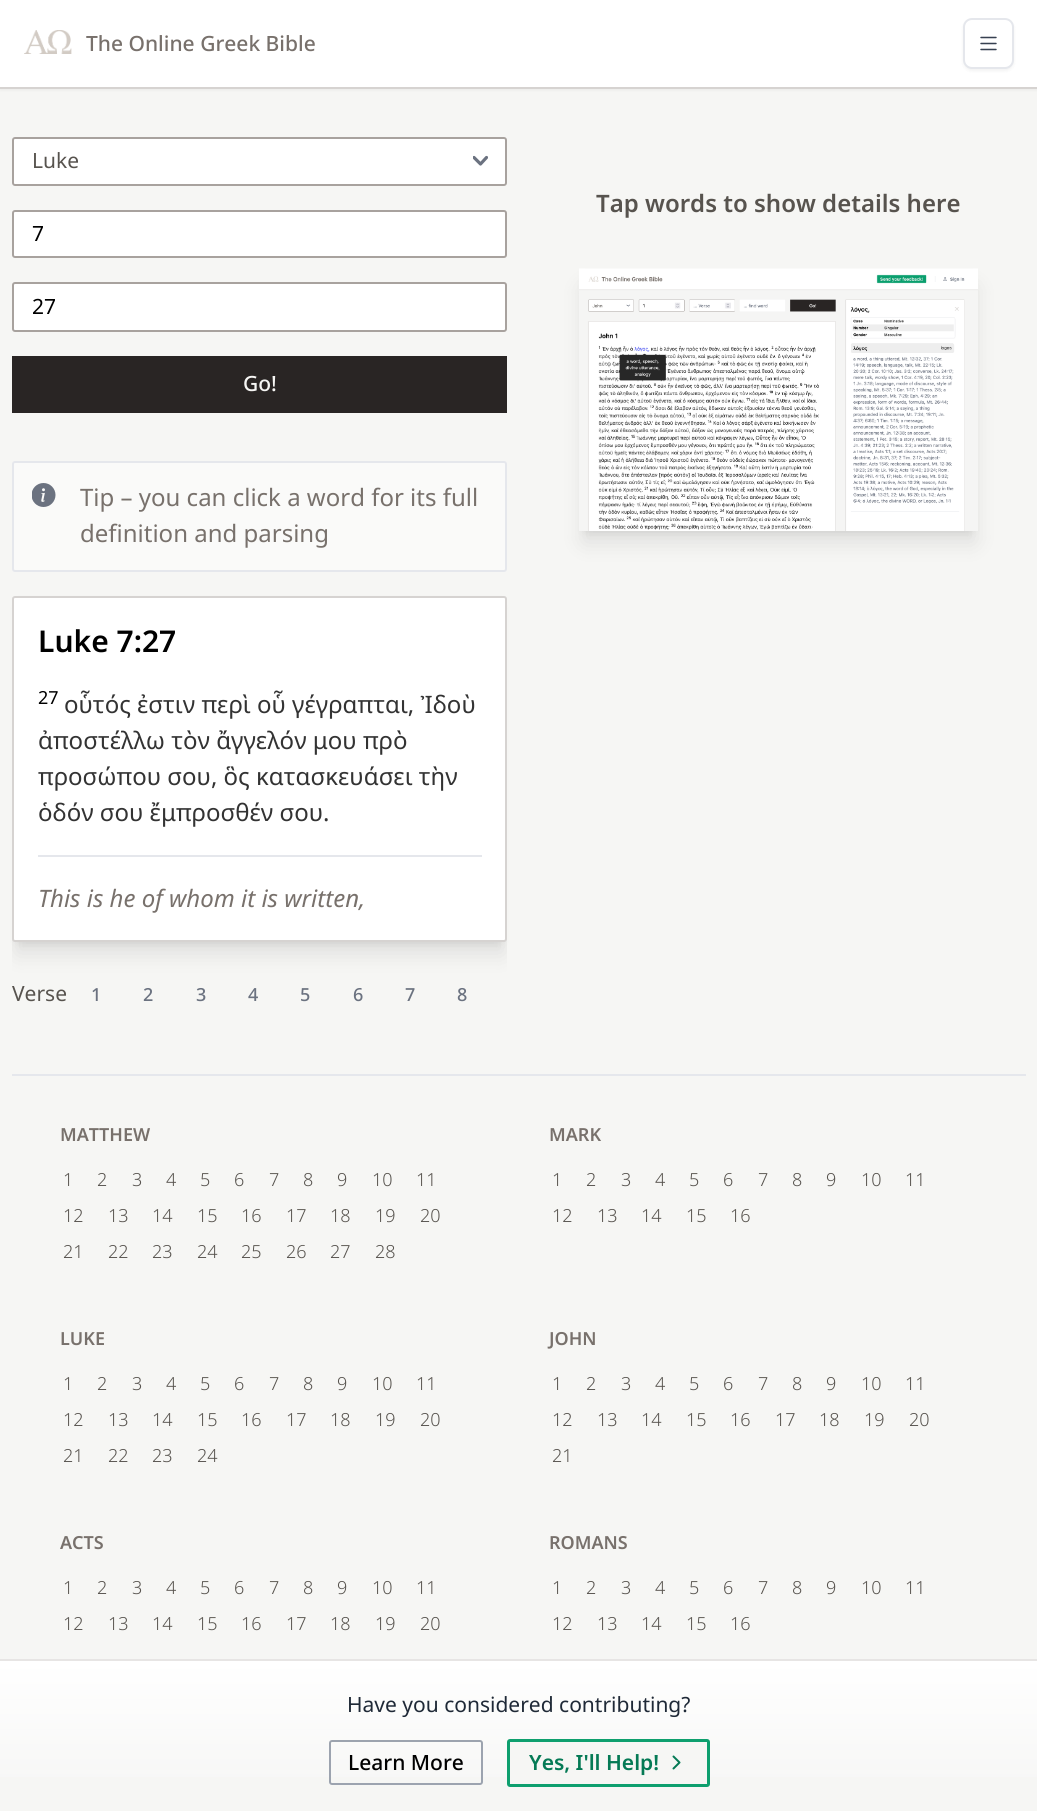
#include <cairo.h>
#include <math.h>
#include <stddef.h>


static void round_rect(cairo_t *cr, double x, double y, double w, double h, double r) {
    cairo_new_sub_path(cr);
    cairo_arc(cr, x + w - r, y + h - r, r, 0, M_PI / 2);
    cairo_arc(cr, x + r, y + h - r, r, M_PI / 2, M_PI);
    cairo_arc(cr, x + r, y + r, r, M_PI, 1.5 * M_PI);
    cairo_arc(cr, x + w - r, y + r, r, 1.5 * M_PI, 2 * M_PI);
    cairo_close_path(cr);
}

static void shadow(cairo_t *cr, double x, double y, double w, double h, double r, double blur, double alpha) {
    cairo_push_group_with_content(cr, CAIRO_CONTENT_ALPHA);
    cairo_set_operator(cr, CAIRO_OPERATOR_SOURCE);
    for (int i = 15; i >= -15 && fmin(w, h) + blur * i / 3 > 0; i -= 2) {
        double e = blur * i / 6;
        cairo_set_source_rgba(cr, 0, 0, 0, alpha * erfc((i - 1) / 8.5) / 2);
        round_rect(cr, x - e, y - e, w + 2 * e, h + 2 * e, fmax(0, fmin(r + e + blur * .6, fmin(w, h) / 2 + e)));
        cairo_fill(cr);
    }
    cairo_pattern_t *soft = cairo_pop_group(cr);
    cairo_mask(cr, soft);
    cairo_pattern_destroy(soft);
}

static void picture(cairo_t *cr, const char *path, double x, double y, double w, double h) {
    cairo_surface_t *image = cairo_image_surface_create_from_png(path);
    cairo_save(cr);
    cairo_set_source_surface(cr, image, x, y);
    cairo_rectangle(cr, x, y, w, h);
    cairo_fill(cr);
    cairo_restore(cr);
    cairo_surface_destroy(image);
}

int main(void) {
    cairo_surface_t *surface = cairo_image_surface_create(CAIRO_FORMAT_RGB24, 1037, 1811);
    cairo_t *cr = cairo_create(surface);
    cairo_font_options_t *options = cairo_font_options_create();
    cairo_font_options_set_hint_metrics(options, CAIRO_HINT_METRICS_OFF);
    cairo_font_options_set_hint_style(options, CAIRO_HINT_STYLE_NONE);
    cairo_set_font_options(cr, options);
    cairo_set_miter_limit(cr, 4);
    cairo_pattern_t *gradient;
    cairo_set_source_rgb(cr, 0.961, 0.961, 0.957);
    cairo_paint(cr);
    cairo_set_source_rgb(cr, 0, 0, 0);
    shadow(cr, 0, 2, 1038, 88, 0, 1.5, 0.05);
    cairo_set_source_rgb(cr, 1, 1, 1);
    cairo_rectangle(cr, 0, 0, 1037, 87);
    cairo_fill(cr);
    cairo_set_source_rgb(cr, 0.839, 0.827, 0.82);
    cairo_rectangle(cr, 0, 87, 1037, 2);
    cairo_fill(cr);
    picture(cr, "img1.png", 24, 30, 48, 24);
    cairo_select_font_face(cr, "Noto Sans Medium", CAIRO_FONT_SLANT_NORMAL, CAIRO_FONT_WEIGHT_NORMAL);
    cairo_set_font_size(cr, 21);
    cairo_set_source_rgb(cr, 0.471, 0.443, 0.424);
    cairo_move_to(cr, 86, 51);
    cairo_show_text(cr, "The Online Greek Bible");
    cairo_set_source_rgb(cr, 0, 0, 0);
    shadow(cr, 963, 20, 51, 51, 9, 1.5, 0.05);
    cairo_set_source_rgb(cr, 1, 1, 1);
    round_rect(cr, 964, 19, 49, 49, 8);
    cairo_fill_preserve(cr);
    cairo_set_source_rgb(cr, 0.898, 0.906, 0.922);
    cairo_stroke(cr);
    picture(cr, "img2.png", 980, 36, 17, 15);
    cairo_set_source_rgb(cr, 1, 1, 1);
    round_rect(cr, 12, 137, 495, 49, 3);
    cairo_fill(cr);
    cairo_save(cr);
    cairo_rectangle(cr, 473, 153, 15, 17);
    cairo_clip(cr);
    cairo_new_path(cr);
    cairo_move_to(cr, 474, 157.5);
    cairo_line_to(cr, 480.5, 164);
    cairo_line_to(cr, 486.5, 157.5);
    cairo_set_source_rgb(cr, 0.42, 0.447, 0.502);
    cairo_set_line_width(cr, 3.2);
    cairo_set_line_cap(cr, CAIRO_LINE_CAP_ROUND);
    cairo_set_line_join(cr, CAIRO_LINE_JOIN_ROUND);
    cairo_stroke(cr);
    cairo_restore(cr);
    round_rect(cr, 13, 138, 493, 47, 2);
    cairo_set_source_rgb(cr, 0.659, 0.635, 0.62);
    cairo_stroke(cr);
    cairo_select_font_face(cr, "Noto Sans", CAIRO_FONT_SLANT_NORMAL, CAIRO_FONT_WEIGHT_NORMAL);
    cairo_set_source_rgb(cr, 0.341, 0.325, 0.306);
    cairo_move_to(cr, 32, 168);
    cairo_show_text(cr, "Luke");
    cairo_set_source_rgb(cr, 1, 1, 1);
    round_rect(cr, 13, 211, 493, 46, 2);
    cairo_fill_preserve(cr);
    cairo_set_source_rgb(cr, 0.659, 0.635, 0.62);
    cairo_stroke(cr);
    cairo_set_source_rgb(cr, 0, 0, 0);
    cairo_move_to(cr, 32, 241);
    cairo_show_text(cr, "7");
    cairo_set_source_rgb(cr, 1, 1, 1);
    round_rect(cr, 13, 283, 493, 48, 2);
    cairo_fill_preserve(cr);
    cairo_set_source_rgb(cr, 0.659, 0.635, 0.62);
    cairo_stroke(cr);
    cairo_set_source_rgb(cr, 0, 0, 0);
    cairo_move_to(cr, 32, 314);
    cairo_show_text(cr, "27");
    cairo_set_source_rgb(cr, 0.161, 0.145, 0.141);
    cairo_rectangle(cr, 12, 356, 495, 57);
    cairo_fill(cr);
    cairo_select_font_face(cr, "Noto Sans Medium", CAIRO_FONT_SLANT_NORMAL, CAIRO_FONT_WEIGHT_NORMAL);
    cairo_set_source_rgb(cr, 0.961, 0.961, 0.957);
    cairo_move_to(cr, 243, 391);
    cairo_show_text(cr, "Go!");
    cairo_set_source_rgb(cr, 0.98, 0.98, 0.976);
    round_rect(cr, 13, 462, 493, 109, 2);
    cairo_fill_preserve(cr);
    cairo_set_source_rgb(cr, 0.898, 0.906, 0.922);
    cairo_stroke(cr);
    picture(cr, "img3.png", 32, 483, 24, 24);
    cairo_select_font_face(cr, "Noto Sans", CAIRO_FONT_SLANT_NORMAL, CAIRO_FONT_WEIGHT_NORMAL);
    cairo_set_font_size(cr, 24);
    cairo_set_source_rgb(cr, 0.471, 0.443, 0.424);
    cairo_move_to(cr, 80, 506);
    cairo_show_text(cr, "Tip – you can click a word for its full");
    cairo_move_to(cr, 80, 542);
    cairo_show_text(cr, "definition and parsing");
    cairo_set_source_rgb(cr, 0, 0, 0);
    shadow(cr, 18, 608, 483, 334, 0, 4.5, 0.1);
    cairo_save(cr);
    cairo_rectangle(cr, 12, 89, 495, 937);
    cairo_clip(cr);
    shadow(cr, 17, 615, 486, 338, 0, 11, 0.1);
    cairo_restore(cr);
    cairo_set_source_rgb(cr, 1, 1, 1);
    round_rect(cr, 13, 597, 493, 344, 2);
    cairo_fill_preserve(cr);
    cairo_set_source_rgb(cr, 0.839, 0.827, 0.82);
    cairo_stroke(cr);
    cairo_select_font_face(cr, "Noto Sans SemiBold", CAIRO_FONT_SLANT_NORMAL, CAIRO_FONT_WEIGHT_NORMAL);
    cairo_set_font_size(cr, 30);
    cairo_set_source_rgb(cr, 0, 0, 0);
    cairo_move_to(cr, 38, 652);
    cairo_show_text(cr, "Luke 7:27");
    cairo_select_font_face(cr, "Noto Sans", CAIRO_FONT_SLANT_NORMAL, CAIRO_FONT_WEIGHT_NORMAL);
    cairo_set_font_size(cr, 18);
    cairo_move_to(cr, 38, 704);
    cairo_show_text(cr, "27");
    cairo_set_font_size(cr, 24);
    cairo_set_source_rgb(cr, 0.2, 0.2, 0.2);
    cairo_move_to(cr, 64, 713);
    cairo_show_text(cr, "οὗτός ἐστιν περὶ οὗ γέγραπται, Ἰδοὺ");
    cairo_move_to(cr, 38, 749);
    cairo_show_text(cr, "ἀποστέλλω τὸν ἄγγελόν μου πρὸ");
    cairo_move_to(cr, 38, 785);
    cairo_show_text(cr, "προσώπου σου, ὃς κατασκευάσει τὴν");
    cairo_move_to(cr, 38, 821);
    cairo_show_text(cr, "ὁδόν σου ἔμπροσθέν σου.");
    cairo_set_source_rgb(cr, 0.898, 0.906, 0.922);
    cairo_rectangle(cr, 38, 855, 444, 2);
    cairo_fill(cr);
    cairo_select_font_face(cr, "Noto Sans", CAIRO_FONT_SLANT_ITALIC, CAIRO_FONT_WEIGHT_NORMAL);
    cairo_set_source_rgb(cr, 0.471, 0.443, 0.424);
    cairo_move_to(cr, 38, 907);
    cairo_show_text(cr, "This is he of whom it is written,");
    cairo_select_font_face(cr, "Noto Sans", CAIRO_FONT_SLANT_NORMAL, CAIRO_FONT_WEIGHT_NORMAL);
    cairo_set_font_size(cr, 21);
    cairo_set_source_rgb(cr, 0.341, 0.325, 0.306);
    cairo_move_to(cr, 12, 1001);
    cairo_show_text(cr, "Verse");
    cairo_select_font_face(cr, "Noto Sans Medium", CAIRO_FONT_SLANT_NORMAL, CAIRO_FONT_WEIGHT_NORMAL);
    cairo_set_font_size(cr, 18);
    cairo_set_source_rgb(cr, 0.42, 0.447, 0.502);
    cairo_move_to(cr, 91, 1001);
    cairo_show_text(cr, "1");
    cairo_move_to(cr, 143, 1001);
    cairo_show_text(cr, "2");
    cairo_move_to(cr, 196, 1001);
    cairo_show_text(cr, "3");
    cairo_move_to(cr, 248, 1001);
    cairo_show_text(cr, "4");
    cairo_move_to(cr, 300, 1001);
    cairo_show_text(cr, "5");
    cairo_move_to(cr, 353, 1001);
    cairo_show_text(cr, "6");
    cairo_move_to(cr, 405, 1001);
    cairo_show_text(cr, "7");
    cairo_move_to(cr, 457, 1001);
    cairo_show_text(cr, "8");
    cairo_select_font_face(cr, "Noto Sans SemiBold", CAIRO_FONT_SLANT_NORMAL, CAIRO_FONT_WEIGHT_NORMAL);
    cairo_set_font_size(cr, 24);
    cairo_set_source_rgb(cr, 0.341, 0.325, 0.306);
    cairo_move_to(cr, 596, 212);
    cairo_show_text(cr, "Tap words to show details here");
    cairo_set_source_rgb(cr, 0, 0, 0);
    shadow(cr, 585, 281, 387, 250, 0, 4.5, 0.1);
    shadow(cr, 584, 288, 390, 254, 0, 11, 0.1);
    picture(cr, "img4.png", 579, 268, 399, 263);
    cairo_set_source_rgb(cr, 0.898, 0.906, 0.922);
    cairo_rectangle(cr, 12, 1074, 1014, 2);
    cairo_fill(cr);
    cairo_set_font_size(cr, 18);
    cairo_set_source_rgb(cr, 0.471, 0.443, 0.424);
    cairo_move_to(cr, 60, 1141);
    cairo_show_text(cr, "MATTHEW");
    cairo_select_font_face(cr, "Noto Sans Light", CAIRO_FONT_SLANT_NORMAL, CAIRO_FONT_WEIGHT_NORMAL);
    cairo_set_source_rgb(cr, 0.341, 0.325, 0.306);
    cairo_move_to(cr, 63, 1186);
    cairo_show_text(cr, "1");
    cairo_move_to(cr, 97, 1186);
    cairo_show_text(cr, "2");
    cairo_move_to(cr, 132, 1186);
    cairo_show_text(cr, "3");
    cairo_move_to(cr, 166, 1186);
    cairo_show_text(cr, "4");
    cairo_move_to(cr, 200, 1186);
    cairo_show_text(cr, "5");
    cairo_move_to(cr, 234, 1186);
    cairo_show_text(cr, "6");
    cairo_move_to(cr, 269, 1186);
    cairo_show_text(cr, "7");
    cairo_move_to(cr, 303, 1186);
    cairo_show_text(cr, "8");
    cairo_move_to(cr, 337, 1186);
    cairo_show_text(cr, "9");
    cairo_move_to(cr, 372, 1186);
    cairo_show_text(cr, "10");
    cairo_move_to(cr, 416, 1186);
    cairo_show_text(cr, "11");
    cairo_move_to(cr, 63, 1222);
    cairo_show_text(cr, "12");
    cairo_move_to(cr, 108, 1222);
    cairo_show_text(cr, "13");
    cairo_move_to(cr, 152, 1222);
    cairo_show_text(cr, "14");
    cairo_move_to(cr, 197, 1222);
    cairo_show_text(cr, "15");
    cairo_move_to(cr, 241, 1222);
    cairo_show_text(cr, "16");
    cairo_move_to(cr, 286, 1222);
    cairo_show_text(cr, "17");
    cairo_move_to(cr, 330, 1222);
    cairo_show_text(cr, "18");
    cairo_move_to(cr, 375, 1222);
    cairo_show_text(cr, "19");
    cairo_move_to(cr, 420, 1222);
    cairo_show_text(cr, "20");
    cairo_move_to(cr, 63, 1258);
    cairo_show_text(cr, "21");
    cairo_move_to(cr, 108, 1258);
    cairo_show_text(cr, "22");
    cairo_move_to(cr, 152, 1258);
    cairo_show_text(cr, "23");
    cairo_move_to(cr, 197, 1258);
    cairo_show_text(cr, "24");
    cairo_move_to(cr, 241, 1258);
    cairo_show_text(cr, "25");
    cairo_move_to(cr, 286, 1258);
    cairo_show_text(cr, "26");
    cairo_move_to(cr, 330, 1258);
    cairo_show_text(cr, "27");
    cairo_move_to(cr, 375, 1258);
    cairo_show_text(cr, "28");
    cairo_select_font_face(cr, "Noto Sans SemiBold", CAIRO_FONT_SLANT_NORMAL, CAIRO_FONT_WEIGHT_NORMAL);
    cairo_set_source_rgb(cr, 0.471, 0.443, 0.424);
    cairo_move_to(cr, 549, 1141);
    cairo_show_text(cr, "MARK");
    cairo_select_font_face(cr, "Noto Sans Light", CAIRO_FONT_SLANT_NORMAL, CAIRO_FONT_WEIGHT_NORMAL);
    cairo_set_source_rgb(cr, 0.341, 0.325, 0.306);
    cairo_move_to(cr, 552, 1186);
    cairo_show_text(cr, "1");
    cairo_move_to(cr, 586, 1186);
    cairo_show_text(cr, "2");
    cairo_move_to(cr, 621, 1186);
    cairo_show_text(cr, "3");
    cairo_move_to(cr, 655, 1186);
    cairo_show_text(cr, "4");
    cairo_move_to(cr, 689, 1186);
    cairo_show_text(cr, "5");
    cairo_move_to(cr, 723, 1186);
    cairo_show_text(cr, "6");
    cairo_move_to(cr, 758, 1186);
    cairo_show_text(cr, "7");
    cairo_move_to(cr, 792, 1186);
    cairo_show_text(cr, "8");
    cairo_move_to(cr, 826, 1186);
    cairo_show_text(cr, "9");
    cairo_move_to(cr, 861, 1186);
    cairo_show_text(cr, "10");
    cairo_move_to(cr, 905, 1186);
    cairo_show_text(cr, "11");
    cairo_move_to(cr, 552, 1222);
    cairo_show_text(cr, "12");
    cairo_move_to(cr, 597, 1222);
    cairo_show_text(cr, "13");
    cairo_move_to(cr, 641, 1222);
    cairo_show_text(cr, "14");
    cairo_move_to(cr, 686, 1222);
    cairo_show_text(cr, "15");
    cairo_move_to(cr, 730, 1222);
    cairo_show_text(cr, "16");
    cairo_select_font_face(cr, "Noto Sans SemiBold", CAIRO_FONT_SLANT_NORMAL, CAIRO_FONT_WEIGHT_NORMAL);
    cairo_set_source_rgb(cr, 0.471, 0.443, 0.424);
    cairo_move_to(cr, 60, 1345);
    cairo_show_text(cr, "LUKE");
    cairo_select_font_face(cr, "Noto Sans Light", CAIRO_FONT_SLANT_NORMAL, CAIRO_FONT_WEIGHT_NORMAL);
    cairo_set_source_rgb(cr, 0.341, 0.325, 0.306);
    cairo_move_to(cr, 63, 1390);
    cairo_show_text(cr, "1");
    cairo_move_to(cr, 97, 1390);
    cairo_show_text(cr, "2");
    cairo_move_to(cr, 132, 1390);
    cairo_show_text(cr, "3");
    cairo_move_to(cr, 166, 1390);
    cairo_show_text(cr, "4");
    cairo_move_to(cr, 200, 1390);
    cairo_show_text(cr, "5");
    cairo_move_to(cr, 234, 1390);
    cairo_show_text(cr, "6");
    cairo_move_to(cr, 269, 1390);
    cairo_show_text(cr, "7");
    cairo_move_to(cr, 303, 1390);
    cairo_show_text(cr, "8");
    cairo_move_to(cr, 337, 1390);
    cairo_show_text(cr, "9");
    cairo_move_to(cr, 372, 1390);
    cairo_show_text(cr, "10");
    cairo_move_to(cr, 416, 1390);
    cairo_show_text(cr, "11");
    cairo_move_to(cr, 63, 1426);
    cairo_show_text(cr, "12");
    cairo_move_to(cr, 108, 1426);
    cairo_show_text(cr, "13");
    cairo_move_to(cr, 152, 1426);
    cairo_show_text(cr, "14");
    cairo_move_to(cr, 197, 1426);
    cairo_show_text(cr, "15");
    cairo_move_to(cr, 241, 1426);
    cairo_show_text(cr, "16");
    cairo_move_to(cr, 286, 1426);
    cairo_show_text(cr, "17");
    cairo_move_to(cr, 330, 1426);
    cairo_show_text(cr, "18");
    cairo_move_to(cr, 375, 1426);
    cairo_show_text(cr, "19");
    cairo_move_to(cr, 420, 1426);
    cairo_show_text(cr, "20");
    cairo_move_to(cr, 63, 1462);
    cairo_show_text(cr, "21");
    cairo_move_to(cr, 108, 1462);
    cairo_show_text(cr, "22");
    cairo_move_to(cr, 152, 1462);
    cairo_show_text(cr, "23");
    cairo_move_to(cr, 197, 1462);
    cairo_show_text(cr, "24");
    cairo_select_font_face(cr, "Noto Sans SemiBold", CAIRO_FONT_SLANT_NORMAL, CAIRO_FONT_WEIGHT_NORMAL);
    cairo_set_source_rgb(cr, 0.471, 0.443, 0.424);
    cairo_move_to(cr, 549, 1345);
    cairo_show_text(cr, "JOHN");
    cairo_select_font_face(cr, "Noto Sans Light", CAIRO_FONT_SLANT_NORMAL, CAIRO_FONT_WEIGHT_NORMAL);
    cairo_set_source_rgb(cr, 0.341, 0.325, 0.306);
    cairo_move_to(cr, 552, 1390);
    cairo_show_text(cr, "1");
    cairo_move_to(cr, 586, 1390);
    cairo_show_text(cr, "2");
    cairo_move_to(cr, 621, 1390);
    cairo_show_text(cr, "3");
    cairo_move_to(cr, 655, 1390);
    cairo_show_text(cr, "4");
    cairo_move_to(cr, 689, 1390);
    cairo_show_text(cr, "5");
    cairo_move_to(cr, 723, 1390);
    cairo_show_text(cr, "6");
    cairo_move_to(cr, 758, 1390);
    cairo_show_text(cr, "7");
    cairo_move_to(cr, 792, 1390);
    cairo_show_text(cr, "8");
    cairo_move_to(cr, 826, 1390);
    cairo_show_text(cr, "9");
    cairo_move_to(cr, 861, 1390);
    cairo_show_text(cr, "10");
    cairo_move_to(cr, 905, 1390);
    cairo_show_text(cr, "11");
    cairo_move_to(cr, 552, 1426);
    cairo_show_text(cr, "12");
    cairo_move_to(cr, 597, 1426);
    cairo_show_text(cr, "13");
    cairo_move_to(cr, 641, 1426);
    cairo_show_text(cr, "14");
    cairo_move_to(cr, 686, 1426);
    cairo_show_text(cr, "15");
    cairo_move_to(cr, 730, 1426);
    cairo_show_text(cr, "16");
    cairo_move_to(cr, 775, 1426);
    cairo_show_text(cr, "17");
    cairo_move_to(cr, 819, 1426);
    cairo_show_text(cr, "18");
    cairo_move_to(cr, 864, 1426);
    cairo_show_text(cr, "19");
    cairo_move_to(cr, 909, 1426);
    cairo_show_text(cr, "20");
    cairo_move_to(cr, 552, 1462);
    cairo_show_text(cr, "21");
    cairo_select_font_face(cr, "Noto Sans SemiBold", CAIRO_FONT_SLANT_NORMAL, CAIRO_FONT_WEIGHT_NORMAL);
    cairo_set_source_rgb(cr, 0.471, 0.443, 0.424);
    cairo_move_to(cr, 60, 1549);
    cairo_show_text(cr, "ACTS");
    cairo_select_font_face(cr, "Noto Sans Light", CAIRO_FONT_SLANT_NORMAL, CAIRO_FONT_WEIGHT_NORMAL);
    cairo_set_source_rgb(cr, 0.341, 0.325, 0.306);
    cairo_move_to(cr, 63, 1594);
    cairo_show_text(cr, "1");
    cairo_move_to(cr, 97, 1594);
    cairo_show_text(cr, "2");
    cairo_move_to(cr, 132, 1594);
    cairo_show_text(cr, "3");
    cairo_move_to(cr, 166, 1594);
    cairo_show_text(cr, "4");
    cairo_move_to(cr, 200, 1594);
    cairo_show_text(cr, "5");
    cairo_move_to(cr, 234, 1594);
    cairo_show_text(cr, "6");
    cairo_move_to(cr, 269, 1594);
    cairo_show_text(cr, "7");
    cairo_move_to(cr, 303, 1594);
    cairo_show_text(cr, "8");
    cairo_move_to(cr, 337, 1594);
    cairo_show_text(cr, "9");
    cairo_move_to(cr, 372, 1594);
    cairo_show_text(cr, "10");
    cairo_move_to(cr, 416, 1594);
    cairo_show_text(cr, "11");
    cairo_move_to(cr, 63, 1630);
    cairo_show_text(cr, "12");
    cairo_move_to(cr, 108, 1630);
    cairo_show_text(cr, "13");
    cairo_move_to(cr, 152, 1630);
    cairo_show_text(cr, "14");
    cairo_move_to(cr, 197, 1630);
    cairo_show_text(cr, "15");
    cairo_move_to(cr, 241, 1630);
    cairo_show_text(cr, "16");
    cairo_move_to(cr, 286, 1630);
    cairo_show_text(cr, "17");
    cairo_move_to(cr, 330, 1630);
    cairo_show_text(cr, "18");
    cairo_move_to(cr, 375, 1630);
    cairo_show_text(cr, "19");
    cairo_move_to(cr, 420, 1630);
    cairo_show_text(cr, "20");
    cairo_select_font_face(cr, "Noto Sans SemiBold", CAIRO_FONT_SLANT_NORMAL, CAIRO_FONT_WEIGHT_NORMAL);
    cairo_set_source_rgb(cr, 0.471, 0.443, 0.424);
    cairo_move_to(cr, 549, 1549);
    cairo_show_text(cr, "ROMANS");
    cairo_select_font_face(cr, "Noto Sans Light", CAIRO_FONT_SLANT_NORMAL, CAIRO_FONT_WEIGHT_NORMAL);
    cairo_set_source_rgb(cr, 0.341, 0.325, 0.306);
    cairo_move_to(cr, 552, 1594);
    cairo_show_text(cr, "1");
    cairo_move_to(cr, 586, 1594);
    cairo_show_text(cr, "2");
    cairo_move_to(cr, 621, 1594);
    cairo_show_text(cr, "3");
    cairo_move_to(cr, 655, 1594);
    cairo_show_text(cr, "4");
    cairo_move_to(cr, 689, 1594);
    cairo_show_text(cr, "5");
    cairo_move_to(cr, 723, 1594);
    cairo_show_text(cr, "6");
    cairo_move_to(cr, 758, 1594);
    cairo_show_text(cr, "7");
    cairo_move_to(cr, 792, 1594);
    cairo_show_text(cr, "8");
    cairo_move_to(cr, 826, 1594);
    cairo_show_text(cr, "9");
    cairo_move_to(cr, 861, 1594);
    cairo_show_text(cr, "10");
    cairo_move_to(cr, 905, 1594);
    cairo_show_text(cr, "11");
    cairo_move_to(cr, 552, 1630);
    cairo_show_text(cr, "12");
    cairo_move_to(cr, 597, 1630);
    cairo_show_text(cr, "13");
    cairo_move_to(cr, 641, 1630);
    cairo_show_text(cr, "14");
    cairo_move_to(cr, 686, 1630);
    cairo_show_text(cr, "15");
    cairo_move_to(cr, 730, 1630);
    cairo_show_text(cr, "16");
    gradient = cairo_pattern_create_linear(519, 1661, 519, 1811);
    cairo_pattern_add_color_stop_rgba(gradient, 0, 1, 1, 1, 1);
    cairo_pattern_add_color_stop_rgba(gradient, 1, 0.961, 0.961, 0.957, 1);
    cairo_set_source(cr, gradient);
    cairo_pattern_destroy(gradient);
    cairo_rectangle(cr, 0, 1661, 1037, 116);
    cairo_fill(cr);
    cairo_set_source_rgb(cr, 0.906, 0.898, 0.894);
    cairo_rectangle(cr, 0, 1659, 1037, 2);
    cairo_fill(cr);
    cairo_select_font_face(cr, "Noto Sans", CAIRO_FONT_SLANT_NORMAL, CAIRO_FONT_WEIGHT_NORMAL);
    cairo_set_font_size(cr, 21);
    cairo_set_source_rgb(cr, 0.122, 0.161, 0.216);
    cairo_move_to(cr, 347, 1712);
    cairo_show_text(cr, "Have you considered contributing?");
    round_rect(cr, 330, 1741, 152, 43, 2);
    cairo_set_source_rgb(cr, 0.612, 0.639, 0.686);
    cairo_stroke(cr);
    cairo_select_font_face(cr, "Noto Sans Medium", CAIRO_FONT_SLANT_NORMAL, CAIRO_FONT_WEIGHT_NORMAL);
    cairo_set_source_rgb(cr, 0, 0, 0);
    cairo_move_to(cr, 348, 1770);
    cairo_show_text(cr, "Learn More");
    cairo_set_source_rgb(cr, 0.961, 0.961, 0.957);
    round_rect(cr, 508.5, 1740.5, 200, 45, 1.5);
    cairo_fill_preserve(cr);
    cairo_set_source_rgb(cr, 0.055, 0.624, 0.431);
    cairo_set_line_width(cr, 3);
    cairo_stroke(cr);
    cairo_select_font_face(cr, "Noto Sans SemiBold", CAIRO_FONT_SLANT_NORMAL, CAIRO_FONT_WEIGHT_NORMAL);
    cairo_set_source_rgb(cr, 0.02, 0.478, 0.333);
    cairo_move_to(cr, 529, 1770);
    cairo_show_text(cr, "Yes, I'll Help!");
    cairo_new_path(cr);
    cairo_move_to(cr, 673.5, 1768.5);
    cairo_line_to(cr, 679.5, 1762.5);
    cairo_line_to(cr, 673.5, 1756.5);
    cairo_set_line_width(cr, 2);
    cairo_set_line_cap(cr, CAIRO_LINE_CAP_ROUND);
    cairo_set_line_join(cr, CAIRO_LINE_JOIN_ROUND);
    cairo_stroke(cr);
    cairo_surface_write_to_png(surface, "page.png");
    cairo_font_options_destroy(options);
    cairo_destroy(cr);
    cairo_surface_destroy(surface);
    return 0;
}
